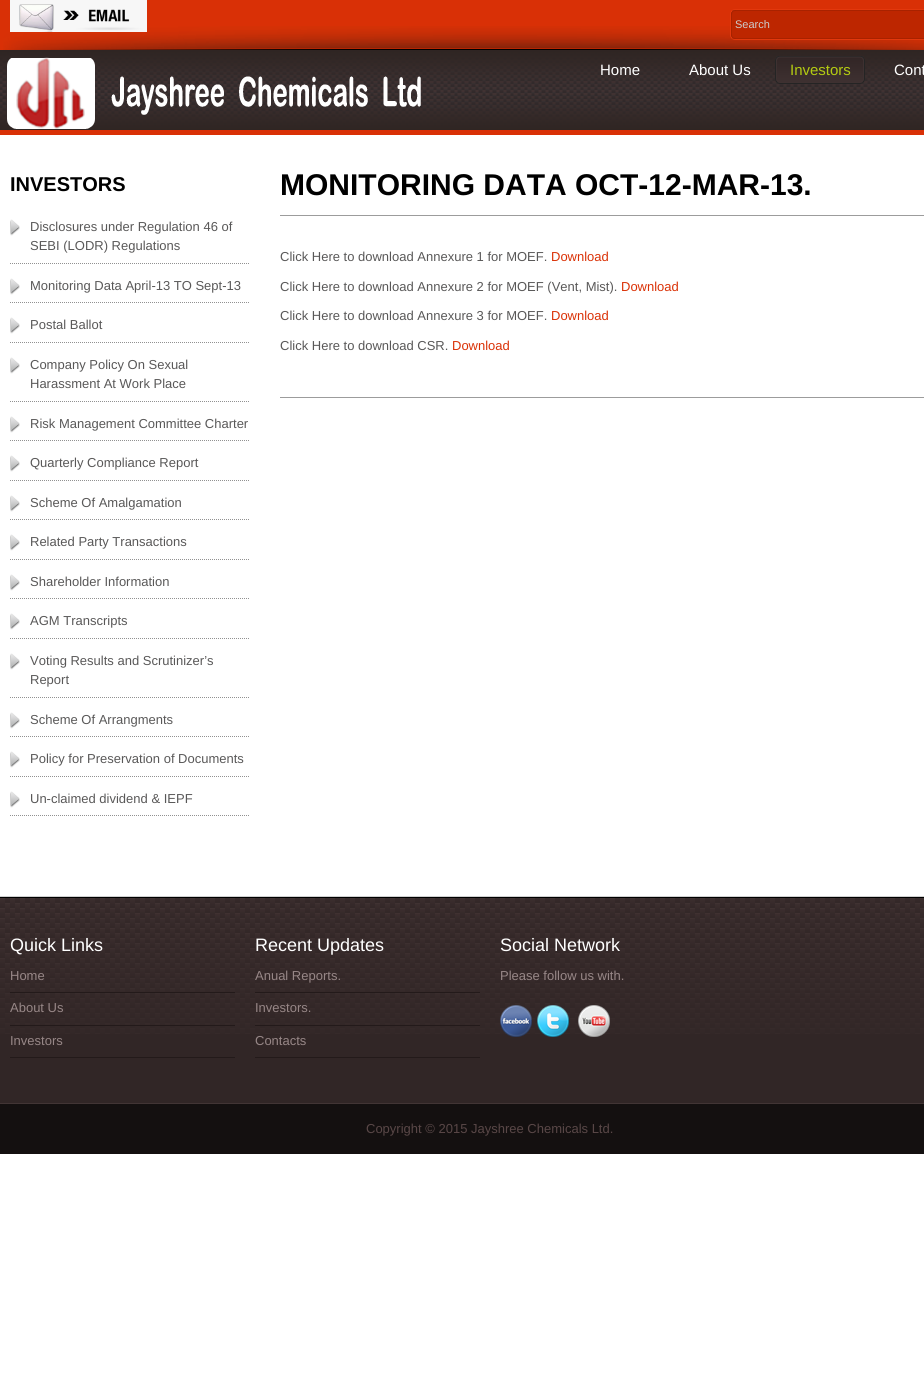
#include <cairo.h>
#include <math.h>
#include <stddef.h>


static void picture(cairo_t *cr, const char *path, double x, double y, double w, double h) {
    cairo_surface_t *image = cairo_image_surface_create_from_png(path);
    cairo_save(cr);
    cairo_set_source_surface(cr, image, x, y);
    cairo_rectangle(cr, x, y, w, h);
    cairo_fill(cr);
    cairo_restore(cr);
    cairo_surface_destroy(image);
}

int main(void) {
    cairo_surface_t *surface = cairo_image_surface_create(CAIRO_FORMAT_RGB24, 924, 1386);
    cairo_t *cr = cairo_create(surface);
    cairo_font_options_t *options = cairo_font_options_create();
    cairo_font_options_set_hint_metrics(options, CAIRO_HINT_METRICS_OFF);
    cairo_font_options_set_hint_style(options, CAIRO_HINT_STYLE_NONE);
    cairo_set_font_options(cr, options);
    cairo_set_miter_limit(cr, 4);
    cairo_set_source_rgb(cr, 1, 1, 1);
    cairo_paint(cr);
    picture(cr, "img1.png", 0, 0, 924, 135);
    picture(cr, "img2.png", 3, 26, 921, 24);
    picture(cr, "img3.png", 10, 0, 137, 32);
    picture(cr, "img4.png", 730, 9, 194, 31);
    cairo_select_font_face(cr, "Liberation Sans", CAIRO_FONT_SLANT_NORMAL, CAIRO_FONT_WEIGHT_NORMAL);
    cairo_set_font_size(cr, 11);
    cairo_set_source_rgb(cr, 0.8, 0.8, 0.8);
    cairo_move_to(cr, 735, 28);
    cairo_show_text(cr, "Search");
    picture(cr, "img5.png", 7, 57, 414, 72);
    cairo_set_font_size(cr, 15);
    cairo_set_source_rgb(cr, 1, 1, 1);
    cairo_move_to(cr, 600, 75);
    cairo_show_text(cr, "Home");
    cairo_move_to(cr, 689, 75);
    cairo_show_text(cr, "About Us");
    picture(cr, "img6.png", 775, 56, 90, 28);
    cairo_set_source_rgb(cr, 0.702, 0.796, 0.071);
    cairo_move_to(cr, 790, 75);
    cairo_show_text(cr, "Investors");
    cairo_set_source_rgb(cr, 1, 1, 1);
    cairo_move_to(cr, 894, 75);
    cairo_show_text(cr, "Cont");
    cairo_select_font_face(cr, "Liberation Sans", CAIRO_FONT_SLANT_NORMAL, CAIRO_FONT_WEIGHT_BOLD);
    cairo_set_font_size(cr, 20);
    cairo_set_source_rgb(cr, 0, 0, 0);
    cairo_move_to(cr, 10, 191);
    cairo_show_text(cr, "INVESTORS");
    cairo_new_path(cr);
    cairo_move_to(cr, 10, 263.5);
    cairo_line_to(cr, 250, 263.5);
    cairo_set_source_rgb(cr, 0.569, 0.569, 0.569);
    cairo_set_line_width(cr, 1);
    cairo_set_dash(cr, (double[]){1, 1}, 2, 0);
    cairo_stroke(cr);
    picture(cr, "img7.png", 10, 219, 10, 17);
    cairo_select_font_face(cr, "Liberation Sans", CAIRO_FONT_SLANT_NORMAL, CAIRO_FONT_WEIGHT_NORMAL);
    cairo_set_font_size(cr, 13);
    cairo_set_source_rgb(cr, 0.349, 0.345, 0.345);
    cairo_move_to(cr, 30, 231);
    cairo_show_text(cr, "Disclosures under Regulation 46 of");
    cairo_move_to(cr, 30, 250);
    cairo_show_text(cr, "SEBI (LODR) Regulations");
    cairo_new_path(cr);
    cairo_move_to(cr, 10, 302.5);
    cairo_line_to(cr, 250, 302.5);
    cairo_set_source_rgb(cr, 0.569, 0.569, 0.569);
    cairo_stroke(cr);
    picture(cr, "img7.png", 10, 278, 10, 17);
    cairo_set_source_rgb(cr, 0.349, 0.345, 0.345);
    cairo_move_to(cr, 30, 290);
    cairo_show_text(cr, "Monitoring Data April-13 TO Sept-13");
    cairo_new_path(cr);
    cairo_move_to(cr, 10, 342.5);
    cairo_line_to(cr, 250, 342.5);
    cairo_set_source_rgb(cr, 0.569, 0.569, 0.569);
    cairo_stroke(cr);
    picture(cr, "img7.png", 10, 317, 10, 17);
    cairo_set_source_rgb(cr, 0.349, 0.345, 0.345);
    cairo_move_to(cr, 30, 329);
    cairo_show_text(cr, "Postal Ballot");
    cairo_new_path(cr);
    cairo_move_to(cr, 10, 401.5);
    cairo_line_to(cr, 250, 401.5);
    cairo_set_source_rgb(cr, 0.569, 0.569, 0.569);
    cairo_stroke(cr);
    picture(cr, "img7.png", 10, 357, 10, 17);
    cairo_set_source_rgb(cr, 0.349, 0.345, 0.345);
    cairo_move_to(cr, 30, 369);
    cairo_show_text(cr, "Company Policy On Sexual");
    cairo_move_to(cr, 30, 388);
    cairo_show_text(cr, "Harassment At Work Place");
    cairo_new_path(cr);
    cairo_move_to(cr, 10, 440.5);
    cairo_line_to(cr, 250, 440.5);
    cairo_set_source_rgb(cr, 0.569, 0.569, 0.569);
    cairo_stroke(cr);
    picture(cr, "img7.png", 10, 416, 10, 17);
    cairo_set_source_rgb(cr, 0.349, 0.345, 0.345);
    cairo_move_to(cr, 30, 428);
    cairo_show_text(cr, "Risk Management Committee Charter");
    cairo_new_path(cr);
    cairo_move_to(cr, 10, 480.5);
    cairo_line_to(cr, 250, 480.5);
    cairo_set_source_rgb(cr, 0.569, 0.569, 0.569);
    cairo_stroke(cr);
    picture(cr, "img7.png", 10, 455, 10, 17);
    cairo_set_source_rgb(cr, 0.349, 0.345, 0.345);
    cairo_move_to(cr, 30, 467);
    cairo_show_text(cr, "Quarterly Compliance Report");
    cairo_new_path(cr);
    cairo_move_to(cr, 10, 519.5);
    cairo_line_to(cr, 250, 519.5);
    cairo_set_source_rgb(cr, 0.569, 0.569, 0.569);
    cairo_stroke(cr);
    picture(cr, "img7.png", 10, 495, 10, 17);
    cairo_set_source_rgb(cr, 0.349, 0.345, 0.345);
    cairo_move_to(cr, 30, 507);
    cairo_show_text(cr, "Scheme Of Amalgamation");
    cairo_new_path(cr);
    cairo_move_to(cr, 10, 559.5);
    cairo_line_to(cr, 250, 559.5);
    cairo_set_source_rgb(cr, 0.569, 0.569, 0.569);
    cairo_stroke(cr);
    picture(cr, "img7.png", 10, 534, 10, 17);
    cairo_set_source_rgb(cr, 0.349, 0.345, 0.345);
    cairo_move_to(cr, 30, 546);
    cairo_show_text(cr, "Related Party Transactions");
    cairo_new_path(cr);
    cairo_move_to(cr, 10, 598.5);
    cairo_line_to(cr, 250, 598.5);
    cairo_set_source_rgb(cr, 0.569, 0.569, 0.569);
    cairo_stroke(cr);
    picture(cr, "img7.png", 10, 574, 10, 17);
    cairo_set_source_rgb(cr, 0.349, 0.345, 0.345);
    cairo_move_to(cr, 30, 586);
    cairo_show_text(cr, "Shareholder Information");
    cairo_new_path(cr);
    cairo_move_to(cr, 10, 638.5);
    cairo_line_to(cr, 250, 638.5);
    cairo_set_source_rgb(cr, 0.569, 0.569, 0.569);
    cairo_stroke(cr);
    picture(cr, "img7.png", 10, 613, 10, 17);
    cairo_set_source_rgb(cr, 0.349, 0.345, 0.345);
    cairo_move_to(cr, 30, 625);
    cairo_show_text(cr, "AGM Transcripts");
    cairo_new_path(cr);
    cairo_move_to(cr, 10, 697.5);
    cairo_line_to(cr, 250, 697.5);
    cairo_set_source_rgb(cr, 0.569, 0.569, 0.569);
    cairo_stroke(cr);
    picture(cr, "img7.png", 10, 653, 10, 17);
    cairo_set_source_rgb(cr, 0.349, 0.345, 0.345);
    cairo_move_to(cr, 30, 665);
    cairo_show_text(cr, "Voting Results and Scrutinizer’s");
    cairo_move_to(cr, 30, 684);
    cairo_show_text(cr, "Report");
    cairo_new_path(cr);
    cairo_move_to(cr, 10, 736.5);
    cairo_line_to(cr, 250, 736.5);
    cairo_set_source_rgb(cr, 0.569, 0.569, 0.569);
    cairo_stroke(cr);
    picture(cr, "img7.png", 10, 712, 10, 17);
    cairo_set_source_rgb(cr, 0.349, 0.345, 0.345);
    cairo_move_to(cr, 30, 724);
    cairo_show_text(cr, "Scheme Of Arrangments");
    cairo_new_path(cr);
    cairo_move_to(cr, 10, 776.5);
    cairo_line_to(cr, 250, 776.5);
    cairo_set_source_rgb(cr, 0.569, 0.569, 0.569);
    cairo_stroke(cr);
    picture(cr, "img7.png", 10, 751, 10, 17);
    cairo_set_source_rgb(cr, 0.349, 0.345, 0.345);
    cairo_move_to(cr, 30, 763);
    cairo_show_text(cr, "Policy for Preservation of Documents");
    cairo_new_path(cr);
    cairo_move_to(cr, 10, 815.5);
    cairo_line_to(cr, 250, 815.5);
    cairo_set_source_rgb(cr, 0.569, 0.569, 0.569);
    cairo_stroke(cr);
    picture(cr, "img7.png", 10, 791, 10, 17);
    cairo_set_source_rgb(cr, 0.349, 0.345, 0.345);
    cairo_move_to(cr, 30, 803);
    cairo_show_text(cr, "Un-claimed dividend & IEPF");
    cairo_select_font_face(cr, "Liberation Sans", CAIRO_FONT_SLANT_NORMAL, CAIRO_FONT_WEIGHT_BOLD);
    cairo_set_font_size(cr, 30);
    cairo_set_source_rgb(cr, 0, 0, 0);
    cairo_move_to(cr, 280, 195);
    cairo_show_text(cr, "MONITORING DATA OCT-12-MAR-13.");
    cairo_set_source_rgb(cr, 0.612, 0.612, 0.612);
    cairo_rectangle(cr, 280, 215, 644, 1);
    cairo_fill(cr);
    cairo_rectangle(cr, 280, 397, 644, 1);
    cairo_fill(cr);
    cairo_select_font_face(cr, "Liberation Sans", CAIRO_FONT_SLANT_NORMAL, CAIRO_FONT_WEIGHT_NORMAL);
    cairo_set_font_size(cr, 13);
    cairo_set_source_rgb(cr, 0.349, 0.345, 0.345);
    cairo_move_to(cr, 280, 261);
    cairo_show_text(cr, "Click Here to download Annexure 1 for MOEF.");
    cairo_set_source_rgb(cr, 0.855, 0.192, 0.024);
    cairo_move_to(cr, 551, 261);
    cairo_show_text(cr, "Download");
    cairo_set_source_rgb(cr, 0.349, 0.345, 0.345);
    cairo_move_to(cr, 280, 291);
    cairo_show_text(cr, "Click Here to download Annexure 2 for MOEF (Vent, Mist).");
    cairo_set_source_rgb(cr, 0.855, 0.192, 0.024);
    cairo_move_to(cr, 621, 291);
    cairo_show_text(cr, "Download");
    cairo_set_source_rgb(cr, 0.349, 0.345, 0.345);
    cairo_move_to(cr, 280, 320);
    cairo_show_text(cr, "Click Here to download Annexure 3 for MOEF.");
    cairo_set_source_rgb(cr, 0.855, 0.192, 0.024);
    cairo_move_to(cr, 551, 320);
    cairo_show_text(cr, "Download");
    cairo_set_source_rgb(cr, 0.349, 0.345, 0.345);
    cairo_move_to(cr, 280, 350);
    cairo_show_text(cr, "Click Here to download CSR.");
    cairo_set_source_rgb(cr, 0.855, 0.192, 0.024);
    cairo_move_to(cr, 452, 350);
    cairo_show_text(cr, "Download");
    cairo_set_source_rgb(cr, 0.192, 0.149, 0.149);
    cairo_rectangle(cr, 0, 1034, 924, 69);
    cairo_fill(cr);
    picture(cr, "img8.png", 0, 896, 924, 138);
    cairo_set_font_size(cr, 18);
    cairo_set_source_rgb(cr, 1, 1, 1);
    cairo_move_to(cr, 10, 951);
    cairo_show_text(cr, "Quick Links");
    cairo_set_source_rgb(cr, 0.137, 0.102, 0.102);
    cairo_rectangle(cr, 10, 992, 225, 1);
    cairo_fill(cr);
    cairo_set_font_size(cr, 13);
    cairo_set_source_rgb(cr, 0.592, 0.529, 0.529);
    cairo_move_to(cr, 10, 980);
    cairo_show_text(cr, "Home");
    cairo_set_source_rgb(cr, 0.137, 0.102, 0.102);
    cairo_rectangle(cr, 10, 1025, 225, 1);
    cairo_fill(cr);
    cairo_set_source_rgb(cr, 0.592, 0.529, 0.529);
    cairo_move_to(cr, 10, 1012);
    cairo_show_text(cr, "About Us");
    cairo_set_source_rgb(cr, 0.137, 0.102, 0.102);
    cairo_rectangle(cr, 10, 1057, 225, 1);
    cairo_fill(cr);
    cairo_set_source_rgb(cr, 0.592, 0.529, 0.529);
    cairo_move_to(cr, 10, 1045);
    cairo_show_text(cr, "Investors");
    cairo_set_font_size(cr, 18);
    cairo_set_source_rgb(cr, 1, 1, 1);
    cairo_move_to(cr, 255, 951);
    cairo_show_text(cr, "Recent Updates");
    cairo_set_source_rgb(cr, 0.137, 0.102, 0.102);
    cairo_rectangle(cr, 255, 992, 225, 1);
    cairo_fill(cr);
    cairo_set_font_size(cr, 13);
    cairo_set_source_rgb(cr, 0.592, 0.529, 0.529);
    cairo_move_to(cr, 255, 980);
    cairo_show_text(cr, "Anual Reports.");
    cairo_set_source_rgb(cr, 0.137, 0.102, 0.102);
    cairo_rectangle(cr, 255, 1025, 225, 1);
    cairo_fill(cr);
    cairo_set_source_rgb(cr, 0.592, 0.529, 0.529);
    cairo_move_to(cr, 255, 1012);
    cairo_show_text(cr, "Investors.");
    cairo_set_source_rgb(cr, 0.137, 0.102, 0.102);
    cairo_rectangle(cr, 255, 1057, 225, 1);
    cairo_fill(cr);
    cairo_set_source_rgb(cr, 0.592, 0.529, 0.529);
    cairo_move_to(cr, 255, 1045);
    cairo_show_text(cr, "Contacts");
    cairo_set_font_size(cr, 18);
    cairo_set_source_rgb(cr, 1, 1, 1);
    cairo_move_to(cr, 500, 951);
    cairo_show_text(cr, "Social Network");
    cairo_set_font_size(cr, 13);
    cairo_set_source_rgb(cr, 0.592, 0.529, 0.529);
    cairo_move_to(cr, 500, 980);
    cairo_show_text(cr, "Please follow us with.");
    picture(cr, "img9.png", 500, 1005, 32, 32);
    picture(cr, "img10.png", 537, 1005, 32, 32);
    picture(cr, "img11.png", 578, 1005, 32, 32);
    cairo_set_source_rgb(cr, 0.082, 0.063, 0.063);
    cairo_rectangle(cr, 0, 1104, 924, 50);
    cairo_fill(cr);
    cairo_set_source_rgb(cr, 0.259, 0.208, 0.208);
    cairo_rectangle(cr, 0, 1103, 924, 1);
    cairo_fill(cr);
    cairo_set_source_rgb(cr, 0.349, 0.278, 0.278);
    cairo_move_to(cr, 366, 1133);
    cairo_show_text(cr, "Copyright © 2015 Jayshree Chemicals Ltd.");
    cairo_surface_write_to_png(surface, "page.png");
    cairo_font_options_destroy(options);
    cairo_destroy(cr);
    cairo_surface_destroy(surface);
    return 0;
}
